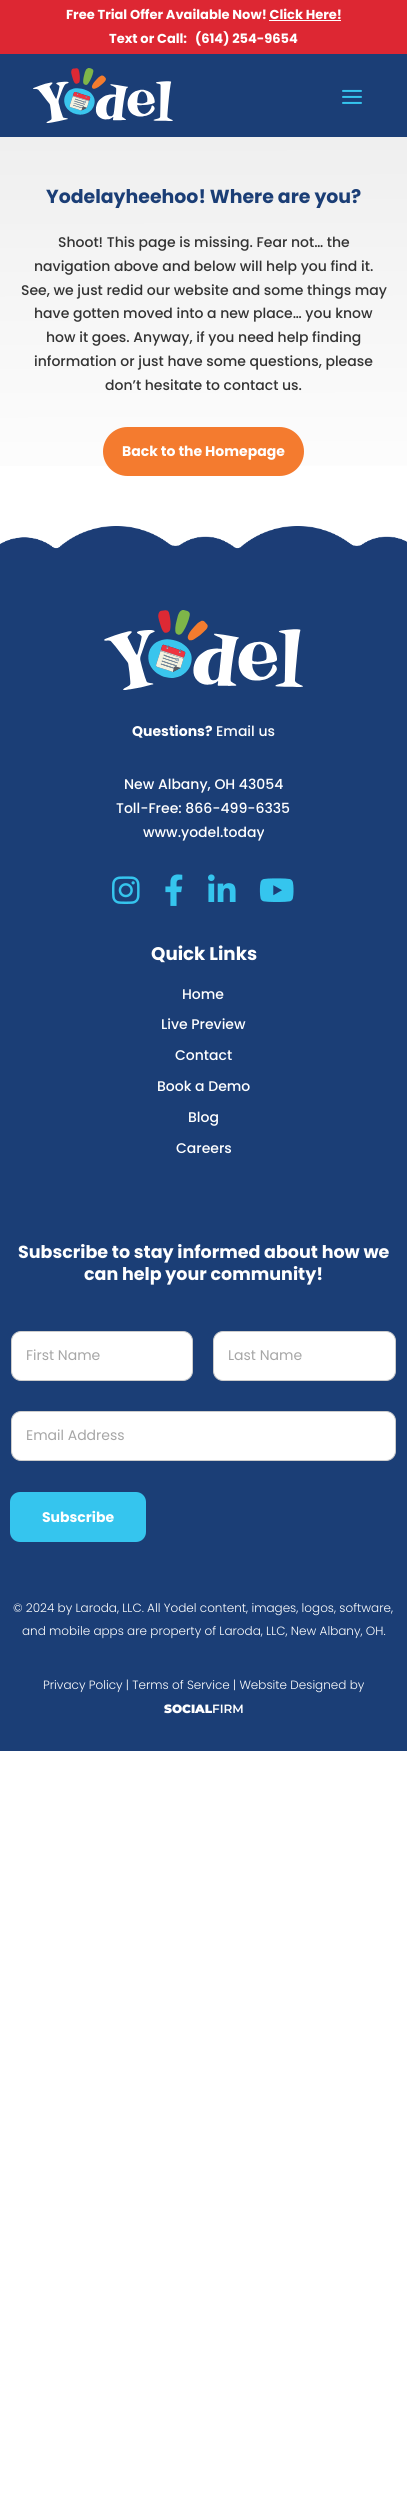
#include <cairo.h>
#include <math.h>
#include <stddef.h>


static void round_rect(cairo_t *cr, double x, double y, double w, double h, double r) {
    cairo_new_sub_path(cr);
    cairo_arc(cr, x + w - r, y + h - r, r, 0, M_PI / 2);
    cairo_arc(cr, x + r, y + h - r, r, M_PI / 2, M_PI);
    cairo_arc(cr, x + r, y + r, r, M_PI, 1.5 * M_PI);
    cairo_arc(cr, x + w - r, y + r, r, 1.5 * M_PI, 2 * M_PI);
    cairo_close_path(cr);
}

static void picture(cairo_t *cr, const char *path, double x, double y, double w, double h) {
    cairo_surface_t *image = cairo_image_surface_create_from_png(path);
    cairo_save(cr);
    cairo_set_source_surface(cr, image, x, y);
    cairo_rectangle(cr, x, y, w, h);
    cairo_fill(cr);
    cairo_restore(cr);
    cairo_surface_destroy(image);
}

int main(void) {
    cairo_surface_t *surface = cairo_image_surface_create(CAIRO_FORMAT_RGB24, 407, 2516);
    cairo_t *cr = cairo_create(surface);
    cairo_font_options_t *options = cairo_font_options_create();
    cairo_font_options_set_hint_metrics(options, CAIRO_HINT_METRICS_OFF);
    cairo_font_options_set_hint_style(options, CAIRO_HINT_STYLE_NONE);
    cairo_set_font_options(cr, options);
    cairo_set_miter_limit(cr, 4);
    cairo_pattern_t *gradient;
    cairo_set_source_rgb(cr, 1, 1, 1);
    cairo_paint(cr);
    cairo_set_source_rgb(cr, 0.106, 0.243, 0.463);
    cairo_rectangle(cr, 0, 54, 407, 83);
    cairo_fill(cr);
    cairo_set_source_rgb(cr, 0.867, 0.153, 0.2);
    cairo_rectangle(cr, 0, 0, 407, 54);
    cairo_fill(cr);
    cairo_select_font_face(cr, "Poppins", CAIRO_FONT_SLANT_NORMAL, CAIRO_FONT_WEIGHT_BOLD);
    cairo_set_font_size(cr, 13);
    cairo_set_source_rgb(cr, 1, 1, 1);
    cairo_move_to(cr, 66, 19);
    cairo_show_text(cr, "Free Trial Offer Available Now! Click Here!");
    cairo_rectangle(cr, 269, 20, 72, 1);
    cairo_fill(cr);
    cairo_move_to(cr, 109, 43);
    cairo_show_text(cr, "Text or Call:");
    cairo_move_to(cr, 195, 43);
    cairo_show_text(cr, "(614) 254-9654");
    picture(cr, "img1.png", 33, 68, 140, 55);
    picture(cr, "img2.png", 342, 89, 20, 15);
    gradient = cairo_pattern_create_linear(203, 137, 204, 526);
    cairo_pattern_add_color_stop_rgba(gradient, 0, 0.937, 0.937, 0.937, 1);
    cairo_pattern_add_color_stop_rgba(gradient, 1, 1, 1, 1, 1);
    cairo_set_source(cr, gradient);
    cairo_pattern_destroy(gradient);
    cairo_rectangle(cr, 0, 137, 407, 329);
    cairo_fill(cr);
    cairo_set_font_size(cr, 18.9);
    cairo_set_source_rgb(cr, 0.106, 0.243, 0.463);
    cairo_move_to(cr, 46, 203);
    cairo_show_text(cr, "Yodelayheehoo! Where are you?");
    cairo_select_font_face(cr, "Poppins Medium", CAIRO_FONT_SLANT_NORMAL, CAIRO_FONT_WEIGHT_NORMAL);
    cairo_set_font_size(cr, 14);
    cairo_set_source_rgb(cr, 0.2, 0.2, 0.2);
    cairo_move_to(cr, 58, 247);
    cairo_show_text(cr, "Shoot! This page is missing. Fear not… the");
    cairo_move_to(cr, 34, 271);
    cairo_show_text(cr, "navigation above and below will help you find it.");
    cairo_move_to(cr, 21, 295);
    cairo_show_text(cr, "See, we just redid our website and some things may");
    cairo_move_to(cr, 34, 318);
    cairo_show_text(cr, "have gotten moved into a new place… you know");
    cairo_move_to(cr, 46, 342);
    cairo_show_text(cr, "how it goes. Anyway, if you need help finding");
    cairo_move_to(cr, 34, 366);
    cairo_show_text(cr, "information or just have some questions, please");
    cairo_move_to(cr, 105, 390);
    cairo_show_text(cr, "don’t hesitate to contact us.");
    cairo_set_source_rgb(cr, 0.957, 0.482, 0.184);
    round_rect(cr, 104, 428, 199, 47, 23.5);
    cairo_fill_preserve(cr);
    cairo_stroke(cr);
    cairo_select_font_face(cr, "Poppins", CAIRO_FONT_SLANT_NORMAL, CAIRO_FONT_WEIGHT_BOLD);
    cairo_set_source_rgb(cr, 1, 1, 1);
    cairo_move_to(cr, 122, 456);
    cairo_show_text(cr, "Back to the Homepage");
    picture(cr, "img3.png", 0, 526, 407, 34);
    cairo_set_source_rgb(cr, 0.106, 0.243, 0.463);
    cairo_rectangle(cr, 0, 560, 407, 1191);
    cairo_fill(cr);
    picture(cr, "img4.png", 104, 610, 199, 80);
    cairo_set_source_rgb(cr, 1, 1, 1);
    cairo_move_to(cr, 132, 736);
    cairo_show_text(cr, "Questions?");
    cairo_select_font_face(cr, "Poppins Medium", CAIRO_FONT_SLANT_NORMAL, CAIRO_FONT_WEIGHT_NORMAL);
    cairo_move_to(cr, 216, 736);
    cairo_show_text(cr, "Email us");
    cairo_move_to(cr, 124, 789);
    cairo_show_text(cr, "New Albany, OH 43054");
    cairo_move_to(cr, 116, 813);
    cairo_show_text(cr, "Toll-Free: 866-499-6335");
    cairo_move_to(cr, 143, 837);
    cairo_show_text(cr, "www.yodel.today");
    picture(cr, "img5.png", 112, 876, 28, 28);
    picture(cr, "img6.png", 165, 874, 18, 32);
    picture(cr, "img7.png", 208, 874, 28, 28);
    picture(cr, "img8.png", 259, 878, 35, 24);
    cairo_select_font_face(cr, "Poppins", CAIRO_FONT_SLANT_NORMAL, CAIRO_FONT_WEIGHT_BOLD);
    cairo_set_font_size(cr, 18.25);
    cairo_move_to(cr, 151, 960);
    cairo_show_text(cr, "Quick Links");
    cairo_select_font_face(cr, "Poppins Medium", CAIRO_FONT_SLANT_NORMAL, CAIRO_FONT_WEIGHT_NORMAL);
    cairo_set_font_size(cr, 14);
    cairo_move_to(cr, 182, 999);
    cairo_show_text(cr, "Home");
    cairo_move_to(cr, 161, 1029);
    cairo_show_text(cr, "Live Preview");
    cairo_move_to(cr, 175, 1060);
    cairo_show_text(cr, "Contact");
    cairo_move_to(cr, 157, 1091);
    cairo_show_text(cr, "Book a Demo");
    cairo_move_to(cr, 188, 1122);
    cairo_show_text(cr, "Blog");
    cairo_move_to(cr, 176, 1153);
    cairo_show_text(cr, "Careers");
    cairo_select_font_face(cr, "Poppins", CAIRO_FONT_SLANT_NORMAL, CAIRO_FONT_WEIGHT_BOLD);
    cairo_set_font_size(cr, 17.5);
    cairo_move_to(cr, 18, 1258);
    cairo_show_text(cr, "Subscribe to stay informed about how we");
    cairo_move_to(cr, 84, 1280);
    cairo_show_text(cr, "can help your community!");
    round_rect(cr, 11.5, 1331.5, 181, 49, 9.5);
    cairo_fill_preserve(cr);
    cairo_set_source_rgb(cr, 0.8, 0.8, 0.8);
    cairo_set_line_width(cr, 1);
    cairo_stroke(cr);
    cairo_select_font_face(cr, "Poppins", CAIRO_FONT_SLANT_NORMAL, CAIRO_FONT_WEIGHT_NORMAL);
    cairo_set_font_size(cr, 14);
    cairo_set_source_rgb(cr, 0.651, 0.651, 0.651);
    cairo_move_to(cr, 26, 1360);
    cairo_show_text(cr, "First Name");
    cairo_set_source_rgb(cr, 1, 1, 1);
    round_rect(cr, 213.5, 1331.5, 182, 49, 9.5);
    cairo_fill_preserve(cr);
    cairo_set_source_rgb(cr, 0.8, 0.8, 0.8);
    cairo_stroke(cr);
    cairo_set_source_rgb(cr, 0.651, 0.651, 0.651);
    cairo_move_to(cr, 228, 1360);
    cairo_show_text(cr, "Last Name");
    cairo_set_source_rgb(cr, 1, 1, 1);
    round_rect(cr, 11.5, 1411.5, 384, 49, 9.5);
    cairo_fill_preserve(cr);
    cairo_set_source_rgb(cr, 0.8, 0.8, 0.8);
    cairo_stroke(cr);
    cairo_set_source_rgb(cr, 0.651, 0.651, 0.651);
    cairo_move_to(cr, 26, 1440);
    cairo_show_text(cr, "Email Address");
    cairo_set_source_rgb(cr, 0.208, 0.773, 0.933);
    round_rect(cr, 11, 1493, 134, 48, 9);
    cairo_fill_preserve(cr);
    cairo_set_line_width(cr, 2);
    cairo_stroke(cr);
    cairo_select_font_face(cr, "Poppins", CAIRO_FONT_SLANT_NORMAL, CAIRO_FONT_WEIGHT_BOLD);
    cairo_set_source_rgb(cr, 1, 1, 1);
    cairo_move_to(cr, 42, 1522);
    cairo_show_text(cr, "Subscribe");
    cairo_select_font_face(cr, "Poppins Light", CAIRO_FONT_SLANT_NORMAL, CAIRO_FONT_WEIGHT_NORMAL);
    cairo_set_font_size(cr, 12);
    cairo_move_to(cr, 13, 1612);
    cairo_show_text(cr, "© 2024 by Laroda, LLC. All Yodel content, images, logos, software,");
    cairo_move_to(cr, 22, 1635);
    cairo_show_text(cr, "and mobile apps are property of Laroda, LLC, New Albany, OH.");
    cairo_move_to(cr, 43, 1689);
    cairo_show_text(cr, "Privacy Policy | Terms of Service | Website Designed by");
    cairo_select_font_face(cr, "Montserrat Black", CAIRO_FONT_SLANT_NORMAL, CAIRO_FONT_WEIGHT_NORMAL);
    cairo_move_to(cr, 164, 1713);
    cairo_show_text(cr, "SOCIAL");
    cairo_select_font_face(cr, "Montserrat SemiBold", CAIRO_FONT_SLANT_NORMAL, CAIRO_FONT_WEIGHT_NORMAL);
    cairo_move_to(cr, 212, 1713);
    cairo_show_text(cr, "FIRM");
    cairo_surface_write_to_png(surface, "page.png");
    cairo_font_options_destroy(options);
    cairo_destroy(cr);
    cairo_surface_destroy(surface);
    return 0;
}
